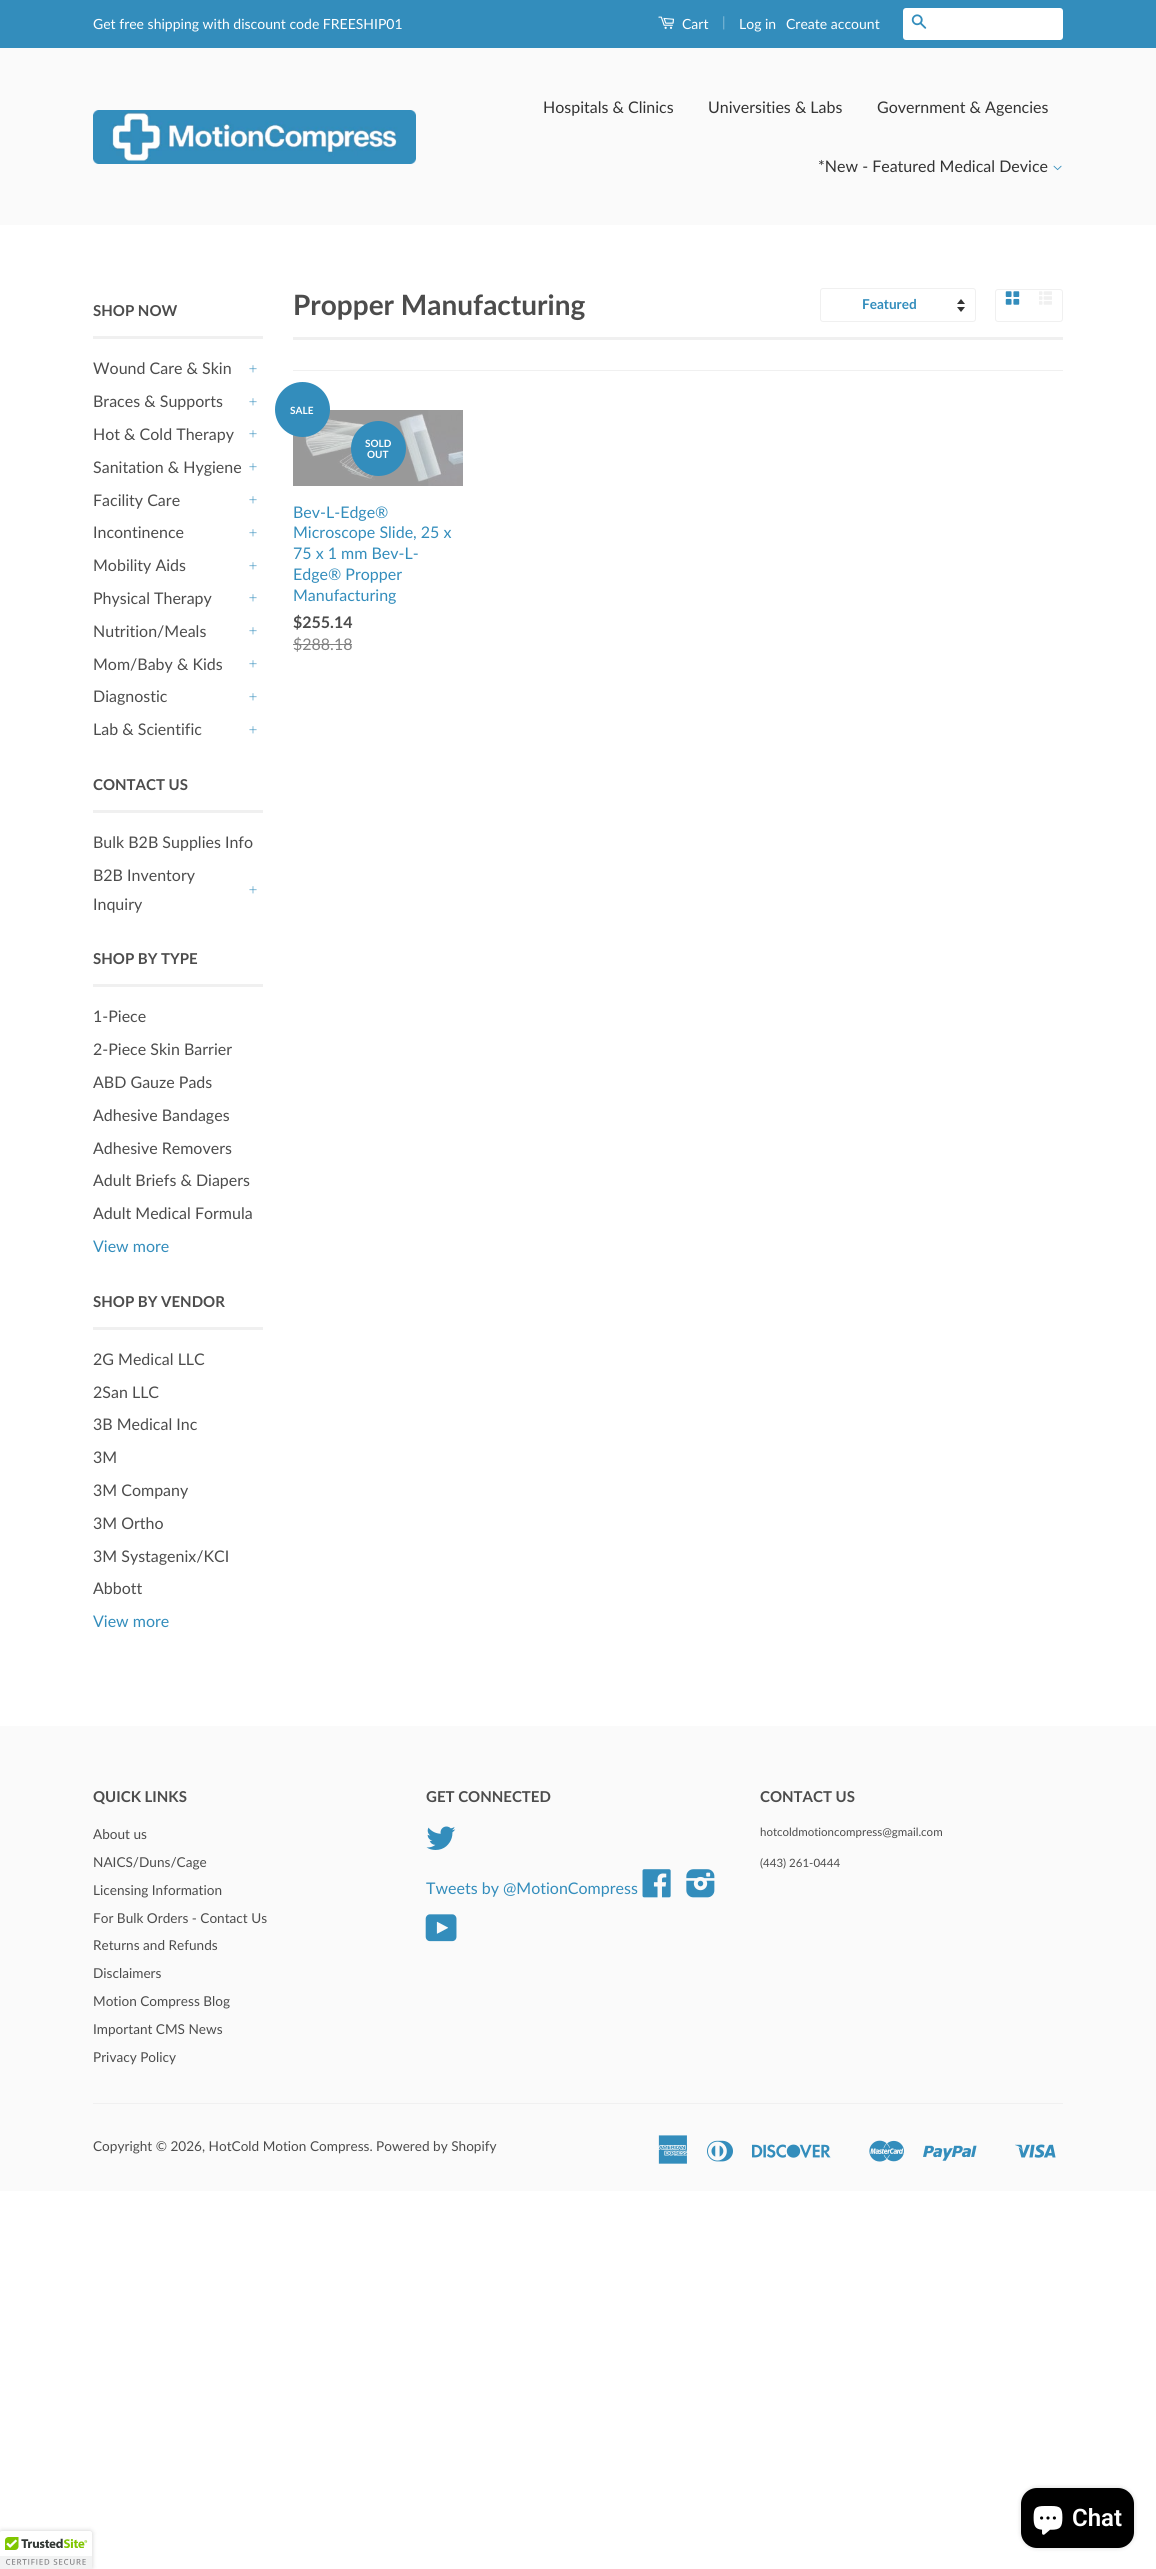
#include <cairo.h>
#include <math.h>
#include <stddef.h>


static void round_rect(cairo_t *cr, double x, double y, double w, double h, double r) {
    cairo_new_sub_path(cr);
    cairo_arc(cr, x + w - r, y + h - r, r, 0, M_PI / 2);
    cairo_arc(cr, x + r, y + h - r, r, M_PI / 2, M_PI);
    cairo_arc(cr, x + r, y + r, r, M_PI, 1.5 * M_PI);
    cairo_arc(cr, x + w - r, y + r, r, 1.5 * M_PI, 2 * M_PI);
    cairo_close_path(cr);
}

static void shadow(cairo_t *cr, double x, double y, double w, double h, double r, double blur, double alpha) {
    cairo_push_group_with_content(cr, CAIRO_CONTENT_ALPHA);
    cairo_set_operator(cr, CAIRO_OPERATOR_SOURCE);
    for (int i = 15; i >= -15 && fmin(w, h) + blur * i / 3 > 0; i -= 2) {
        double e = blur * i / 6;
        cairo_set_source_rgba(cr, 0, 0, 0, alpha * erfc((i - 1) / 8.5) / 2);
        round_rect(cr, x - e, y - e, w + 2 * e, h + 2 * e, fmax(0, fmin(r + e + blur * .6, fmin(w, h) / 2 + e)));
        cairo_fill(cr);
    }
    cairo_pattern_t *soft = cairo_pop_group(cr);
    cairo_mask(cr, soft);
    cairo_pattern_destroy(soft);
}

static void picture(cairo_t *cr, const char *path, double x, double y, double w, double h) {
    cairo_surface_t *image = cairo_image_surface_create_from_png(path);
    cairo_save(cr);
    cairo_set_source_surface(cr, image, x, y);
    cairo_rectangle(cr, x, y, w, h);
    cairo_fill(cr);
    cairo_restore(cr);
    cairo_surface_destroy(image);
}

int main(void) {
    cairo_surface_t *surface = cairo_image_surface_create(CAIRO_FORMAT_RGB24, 1156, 2569);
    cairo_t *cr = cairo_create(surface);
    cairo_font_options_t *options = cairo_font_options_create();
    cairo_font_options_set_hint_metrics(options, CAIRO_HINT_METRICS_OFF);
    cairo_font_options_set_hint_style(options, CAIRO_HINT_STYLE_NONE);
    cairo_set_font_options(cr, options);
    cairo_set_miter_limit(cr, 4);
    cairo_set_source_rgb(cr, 1, 1, 1);
    cairo_paint(cr);
    cairo_set_source_rgb(cr, 0.2, 0.553, 0.737);
    cairo_rectangle(cr, 0, 0, 1156, 48);
    cairo_fill(cr);
    cairo_select_font_face(cr, "Lato", CAIRO_FONT_SLANT_NORMAL, CAIRO_FONT_WEIGHT_NORMAL);
    cairo_set_font_size(cr, 14);
    cairo_set_source_rgb(cr, 1, 1, 1);
    cairo_move_to(cr, 93, 29);
    cairo_show_text(cr, "Get free shipping with discount code FREESHIP01");
    picture(cr, "img1.png", 658, 16, 16, 13);
    cairo_move_to(cr, 682, 29);
    cairo_show_text(cr, "Cart");
    cairo_set_source_rgb(cr, 0.522, 0.733, 0.843);
    cairo_move_to(cr, 722, 27);
    cairo_show_text(cr, "|");
    cairo_set_source_rgb(cr, 1, 1, 1);
    cairo_move_to(cr, 739, 29);
    cairo_show_text(cr, "Log in");
    cairo_move_to(cr, 786, 29);
    cairo_show_text(cr, "Create account");
    round_rect(cr, 903, 8, 160, 32, 3);
    cairo_fill(cr);
    picture(cr, "img2.png", 911, 14, 16, 15);
    cairo_set_source_rgb(cr, 0.98, 0.98, 0.98);
    cairo_rectangle(cr, 0, 48, 1156, 177);
    cairo_fill(cr);
    picture(cr, "img3.png", 93, 110, 323, 54);
    cairo_set_font_size(cr, 16);
    cairo_set_source_rgb(cr, 0.2, 0.2, 0.2);
    cairo_move_to(cr, 543, 113);
    cairo_show_text(cr, "Hospitals & Clinics");
    cairo_move_to(cr, 708, 113);
    cairo_show_text(cr, "Universities & Labs");
    cairo_move_to(cr, 877, 113);
    cairo_show_text(cr, "Government & Agencies");
    cairo_move_to(cr, 818, 172);
    cairo_show_text(cr, "*New - Featured Medical Device");
    picture(cr, "img4.png", 1053, 165, 9, 6);
    cairo_set_source_rgb(cr, 0.941, 0.941, 0.941);
    cairo_rectangle(cr, 93, 336, 170, 3);
    cairo_fill(cr);
    cairo_select_font_face(cr, "Lato", CAIRO_FONT_SLANT_NORMAL, CAIRO_FONT_WEIGHT_BOLD);
    cairo_set_font_size(cr, 15);
    cairo_set_source_rgb(cr, 0.298, 0.298, 0.298);
    cairo_move_to(cr, 93, 316);
    cairo_show_text(cr, "SHOP NOW");
    cairo_select_font_face(cr, "Lato", CAIRO_FONT_SLANT_NORMAL, CAIRO_FONT_WEIGHT_NORMAL);
    cairo_set_font_size(cr, 16);
    cairo_move_to(cr, 93, 374);
    cairo_show_text(cr, "Wound Care & Skin");
    picture(cr, "img5.png", 249, 365, 8, 8);
    cairo_move_to(cr, 93, 407);
    cairo_show_text(cr, "Braces & Supports");
    picture(cr, "img5.png", 249, 398, 8, 8);
    cairo_move_to(cr, 93, 440);
    cairo_show_text(cr, "Hot & Cold Therapy");
    picture(cr, "img5.png", 249, 430, 8, 8);
    cairo_move_to(cr, 93, 473);
    cairo_show_text(cr, "Sanitation & Hygiene");
    picture(cr, "img5.png", 249, 463, 8, 8);
    cairo_move_to(cr, 93, 506);
    cairo_show_text(cr, "Facility Care");
    picture(cr, "img5.png", 249, 496, 8, 8);
    cairo_move_to(cr, 93, 538);
    cairo_show_text(cr, "Incontinence");
    picture(cr, "img5.png", 249, 529, 8, 8);
    cairo_move_to(cr, 93, 571);
    cairo_show_text(cr, "Mobility Aids");
    picture(cr, "img5.png", 249, 562, 8, 8);
    cairo_move_to(cr, 93, 604);
    cairo_show_text(cr, "Physical Therapy");
    picture(cr, "img5.png", 249, 594, 8, 8);
    cairo_move_to(cr, 93, 637);
    cairo_show_text(cr, "Nutrition/Meals");
    picture(cr, "img5.png", 249, 627, 8, 8);
    cairo_move_to(cr, 93, 670);
    cairo_show_text(cr, "Mom/Baby & Kids");
    picture(cr, "img5.png", 249, 660, 8, 8);
    cairo_move_to(cr, 93, 702);
    cairo_show_text(cr, "Diagnostic");
    picture(cr, "img5.png", 249, 693, 8, 8);
    cairo_move_to(cr, 93, 735);
    cairo_show_text(cr, "Lab & Scientific");
    picture(cr, "img5.png", 249, 726, 8, 8);
    cairo_set_source_rgb(cr, 0.941, 0.941, 0.941);
    cairo_rectangle(cr, 93, 810, 170, 3);
    cairo_fill(cr);
    cairo_select_font_face(cr, "Lato", CAIRO_FONT_SLANT_NORMAL, CAIRO_FONT_WEIGHT_BOLD);
    cairo_set_font_size(cr, 15);
    cairo_set_source_rgb(cr, 0.298, 0.298, 0.298);
    cairo_move_to(cr, 93, 790);
    cairo_show_text(cr, "CONTACT US");
    cairo_select_font_face(cr, "Lato", CAIRO_FONT_SLANT_NORMAL, CAIRO_FONT_WEIGHT_NORMAL);
    cairo_set_font_size(cr, 16);
    cairo_move_to(cr, 93, 848);
    cairo_show_text(cr, "Bulk B2B Supplies Info");
    cairo_move_to(cr, 93, 881);
    cairo_show_text(cr, "B2B Inventory");
    cairo_move_to(cr, 93, 910);
    cairo_show_text(cr, "Inquiry");
    picture(cr, "img5.png", 249, 886, 8, 8);
    cairo_set_source_rgb(cr, 0.941, 0.941, 0.941);
    cairo_rectangle(cr, 93, 984, 170, 3);
    cairo_fill(cr);
    cairo_select_font_face(cr, "Lato", CAIRO_FONT_SLANT_NORMAL, CAIRO_FONT_WEIGHT_BOLD);
    cairo_set_font_size(cr, 15);
    cairo_set_source_rgb(cr, 0.298, 0.298, 0.298);
    cairo_move_to(cr, 93, 964);
    cairo_show_text(cr, "SHOP BY TYPE");
    cairo_select_font_face(cr, "Lato", CAIRO_FONT_SLANT_NORMAL, CAIRO_FONT_WEIGHT_NORMAL);
    cairo_set_font_size(cr, 16);
    cairo_move_to(cr, 93, 1022);
    cairo_show_text(cr, "1-Piece");
    cairo_move_to(cr, 93, 1055);
    cairo_show_text(cr, "2-Piece Skin Barrier");
    cairo_move_to(cr, 93, 1088);
    cairo_show_text(cr, "ABD Gauze Pads");
    cairo_move_to(cr, 93, 1121);
    cairo_show_text(cr, "Adhesive Bandages");
    cairo_move_to(cr, 93, 1154);
    cairo_show_text(cr, "Adhesive Removers");
    cairo_move_to(cr, 93, 1186);
    cairo_show_text(cr, "Adult Briefs & Diapers");
    cairo_move_to(cr, 93, 1219);
    cairo_show_text(cr, "Adult Medical Formula");
    cairo_set_source_rgb(cr, 0.2, 0.553, 0.737);
    cairo_move_to(cr, 93, 1252);
    cairo_show_text(cr, "View more");
    cairo_set_source_rgb(cr, 0.941, 0.941, 0.941);
    cairo_rectangle(cr, 93, 1327, 170, 3);
    cairo_fill(cr);
    cairo_select_font_face(cr, "Lato", CAIRO_FONT_SLANT_NORMAL, CAIRO_FONT_WEIGHT_BOLD);
    cairo_set_font_size(cr, 15);
    cairo_set_source_rgb(cr, 0.298, 0.298, 0.298);
    cairo_move_to(cr, 93, 1307);
    cairo_show_text(cr, "SHOP BY VENDOR");
    cairo_select_font_face(cr, "Lato", CAIRO_FONT_SLANT_NORMAL, CAIRO_FONT_WEIGHT_NORMAL);
    cairo_set_font_size(cr, 16);
    cairo_move_to(cr, 93, 1365);
    cairo_show_text(cr, "2G Medical LLC");
    cairo_move_to(cr, 93, 1398);
    cairo_show_text(cr, "2San LLC");
    cairo_move_to(cr, 93, 1430);
    cairo_show_text(cr, "3B Medical Inc");
    cairo_move_to(cr, 93, 1463);
    cairo_show_text(cr, "3M");
    cairo_move_to(cr, 93, 1496);
    cairo_show_text(cr, "3M Company");
    cairo_move_to(cr, 93, 1529);
    cairo_show_text(cr, "3M Ortho");
    cairo_move_to(cr, 93, 1562);
    cairo_show_text(cr, "3M Systagenix/KCI");
    cairo_move_to(cr, 93, 1594);
    cairo_show_text(cr, "Abbott");
    cairo_set_source_rgb(cr, 0.2, 0.553, 0.737);
    cairo_move_to(cr, 93, 1627);
    cairo_show_text(cr, "View more");
    cairo_set_source_rgb(cr, 0.941, 0.941, 0.941);
    cairo_rectangle(cr, 293, 337, 770, 3);
    cairo_fill(cr);
    cairo_select_font_face(cr, "Lato", CAIRO_FONT_SLANT_NORMAL, CAIRO_FONT_WEIGHT_BOLD);
    cairo_set_font_size(cr, 28);
    cairo_set_source_rgb(cr, 0.298, 0.298, 0.298);
    cairo_move_to(cr, 293, 315);
    cairo_show_text(cr, "Propper Manufacturing");
    picture(cr, "img6.png", 957, 299, 8, 13);
    round_rect(cr, 820.5, 288.5, 155, 33, 2.5);
    cairo_set_source_rgb(cr, 0.941, 0.941, 0.941);
    cairo_set_line_width(cr, 1);
    cairo_stroke(cr);
    cairo_set_font_size(cr, 13.6);
    cairo_set_source_rgb(cr, 0.2, 0.553, 0.737);
    cairo_move_to(cr, 862, 309);
    cairo_show_text(cr, "Featured");
    round_rect(cr, 995.5, 289.5, 67, 32, 2.5);
    cairo_set_source_rgb(cr, 0.941, 0.941, 0.941);
    cairo_stroke(cr);
    picture(cr, "img7.png", 1005, 291, 15, 14);
    picture(cr, "img8.png", 1039, 291, 13, 14);
    cairo_rectangle(cr, 293, 370, 770, 1);
    cairo_fill(cr);
    picture(cr, "img9.png", 293, 410, 170, 76);
    cairo_set_source_rgb(cr, 0.2, 0.553, 0.737);
    cairo_arc(cr, 302.5, 409.5, 27.5, 0, 2 * M_PI);
    cairo_fill(cr);
    cairo_set_font_size(cr, 10);
    cairo_set_source_rgb(cr, 1, 1, 1);
    cairo_move_to(cr, 290, 414);
    cairo_show_text(cr, "SALE");
    cairo_set_source_rgb(cr, 0.2, 0.553, 0.737);
    cairo_new_path(cr);
    cairo_arc(cr, 378.5, 448.5, 27.5, 0, 2 * M_PI);
    cairo_fill(cr);
    cairo_set_source_rgb(cr, 1, 1, 1);
    cairo_move_to(cr, 365, 447);
    cairo_show_text(cr, "SOLD");
    cairo_move_to(cr, 367, 458);
    cairo_show_text(cr, "OUT");
    cairo_select_font_face(cr, "Lato", CAIRO_FONT_SLANT_NORMAL, CAIRO_FONT_WEIGHT_NORMAL);
    cairo_set_font_size(cr, 16);
    cairo_set_source_rgb(cr, 0.2, 0.553, 0.737);
    cairo_move_to(cr, 293, 518);
    cairo_show_text(cr, "Bev-L-Edge®");
    cairo_move_to(cr, 293, 538);
    cairo_show_text(cr, "Microscope Slide, 25 x");
    cairo_move_to(cr, 293, 559);
    cairo_show_text(cr, "75 x 1 mm Bev-L-");
    cairo_move_to(cr, 293, 580);
    cairo_show_text(cr, "Edge® Propper");
    cairo_move_to(cr, 293, 601);
    cairo_show_text(cr, "Manufacturing");
    cairo_select_font_face(cr, "Lato", CAIRO_FONT_SLANT_NORMAL, CAIRO_FONT_WEIGHT_BOLD);
    cairo_set_source_rgb(cr, 0.298, 0.298, 0.298);
    cairo_move_to(cr, 293, 628);
    cairo_show_text(cr, "$255.14");
    cairo_select_font_face(cr, "Lato", CAIRO_FONT_SLANT_NORMAL, CAIRO_FONT_WEIGHT_NORMAL);
    cairo_set_source_rgb(cr, 0.51, 0.51, 0.51);
    cairo_move_to(cr, 293, 650);
    cairo_show_text(cr, "$288.18");
    cairo_rectangle(cr, 293, 644, 59, 1);
    cairo_fill(cr);
    cairo_set_source_rgb(cr, 0.98, 0.98, 0.98);
    cairo_rectangle(cr, 0, 1726, 1156, 465);
    cairo_fill(cr);
    cairo_select_font_face(cr, "Lato", CAIRO_FONT_SLANT_NORMAL, CAIRO_FONT_WEIGHT_BOLD);
    cairo_set_font_size(cr, 15);
    cairo_set_source_rgb(cr, 0.298, 0.298, 0.298);
    cairo_move_to(cr, 93, 1802);
    cairo_show_text(cr, "QUICK LINKS");
    cairo_select_font_face(cr, "Lato", CAIRO_FONT_SLANT_NORMAL, CAIRO_FONT_WEIGHT_NORMAL);
    cairo_set_font_size(cr, 13.6);
    cairo_move_to(cr, 93, 1839);
    cairo_show_text(cr, "About us");
    cairo_move_to(cr, 93, 1867);
    cairo_show_text(cr, "NAICS/Duns/Cage");
    cairo_move_to(cr, 93, 1895);
    cairo_show_text(cr, "Licensing Information");
    cairo_move_to(cr, 93, 1923);
    cairo_show_text(cr, "For Bulk Orders - Contact Us");
    cairo_move_to(cr, 93, 1950);
    cairo_show_text(cr, "Returns and Refunds");
    cairo_move_to(cr, 93, 1978);
    cairo_show_text(cr, "Disclaimers");
    cairo_move_to(cr, 93, 2006);
    cairo_show_text(cr, "Motion Compress Blog");
    cairo_move_to(cr, 93, 2034);
    cairo_show_text(cr, "Important CMS News");
    cairo_move_to(cr, 93, 2062);
    cairo_show_text(cr, "Privacy Policy");
    cairo_select_font_face(cr, "Lato", CAIRO_FONT_SLANT_NORMAL, CAIRO_FONT_WEIGHT_BOLD);
    cairo_set_font_size(cr, 15);
    cairo_move_to(cr, 426, 1802);
    cairo_show_text(cr, "GET CONNECTED");
    picture(cr, "img10.png", 426, 1826, 30, 24);
    cairo_select_font_face(cr, "Lato", CAIRO_FONT_SLANT_NORMAL, CAIRO_FONT_WEIGHT_NORMAL);
    cairo_set_font_size(cr, 16);
    cairo_set_source_rgb(cr, 0.2, 0.553, 0.737);
    cairo_move_to(cr, 426, 1894);
    cairo_show_text(cr, "Tweets by @MotionCompress");
    picture(cr, "img11.png", 642, 1869, 29, 29);
    picture(cr, "img12.png", 686, 1869, 29, 29);
    picture(cr, "img13.png", 425, 1914, 32, 28);
    cairo_select_font_face(cr, "Lato", CAIRO_FONT_SLANT_NORMAL, CAIRO_FONT_WEIGHT_BOLD);
    cairo_set_font_size(cr, 15);
    cairo_set_source_rgb(cr, 0.298, 0.298, 0.298);
    cairo_move_to(cr, 760, 1802);
    cairo_show_text(cr, "CONTACT US");
    cairo_select_font_face(cr, "Lato", CAIRO_FONT_SLANT_NORMAL, CAIRO_FONT_WEIGHT_NORMAL);
    cairo_set_font_size(cr, 11.5);
    cairo_move_to(cr, 760, 1836);
    cairo_show_text(cr, "hotcoldmotioncompress@gmail.com");
    cairo_move_to(cr, 760, 1867);
    cairo_show_text(cr, "(443) 261-0444");
    cairo_set_source_rgb(cr, 0.941, 0.941, 0.941);
    cairo_rectangle(cr, 93, 2103, 970, 1);
    cairo_fill(cr);
    cairo_set_font_size(cr, 13.6);
    cairo_set_source_rgb(cr, 0.298, 0.298, 0.298);
    cairo_move_to(cr, 93, 2151);
    cairo_show_text(cr, "Copyright © 2026, HotCold Motion Compress. Powered by Shopify");
    picture(cr, "img14.png", 658, 2135, 30, 29);
    picture(cr, "img15.png", 707, 2140, 26, 22);
    picture(cr, "img16.png", 752, 2144, 79, 14);
    picture(cr, "img17.png", 869, 2140, 35, 22);
    picture(cr, "img18.png", 923, 2145, 54, 16);
    picture(cr, "img19.png", 1015, 2144, 41, 14);
    cairo_set_source_rgb(cr, 0, 0, 0);
    shadow(cr, 1021, 2488, 113, 60, 16, 2.5, 0.15);
    cairo_set_source_rgb(cr, 0, 0, 0);
    round_rect(cr, 1021, 2488, 113, 60, 16);
    cairo_fill(cr);
    picture(cr, "img20.png", 1033, 2506, 30, 29);
    cairo_select_font_face(cr, "Roboto SemiBold", CAIRO_FONT_SLANT_NORMAL, CAIRO_FONT_WEIGHT_NORMAL);
    cairo_set_font_size(cr, 24);
    cairo_set_source_rgb(cr, 1, 1, 1);
    cairo_move_to(cr, 1072, 2526);
    cairo_show_text(cr, "Chat");
    cairo_set_source_rgb(cr, 0, 0, 0);
    shadow(cr, 0, 2531, 92, 38, 2, 2.5, 0.2);
    cairo_set_source_rgb(cr, 1, 1, 1);
    cairo_new_path(cr);
    cairo_move_to(cr, 0, 2531);
    cairo_line_to(cr, 90, 2531);
    cairo_curve_to(cr, 91, 2531, 92, 2532, 92, 2533);
    cairo_line_to(cr, 92, 2569);
    cairo_line_to(cr, 0, 2569);
    cairo_close_path(cr);
    cairo_fill(cr);
    picture(cr, "img21.png", 0, 2531, 92, 38);
    cairo_surface_write_to_png(surface, "page.png");
    cairo_font_options_destroy(options);
    cairo_destroy(cr);
    cairo_surface_destroy(surface);
    return 0;
}
